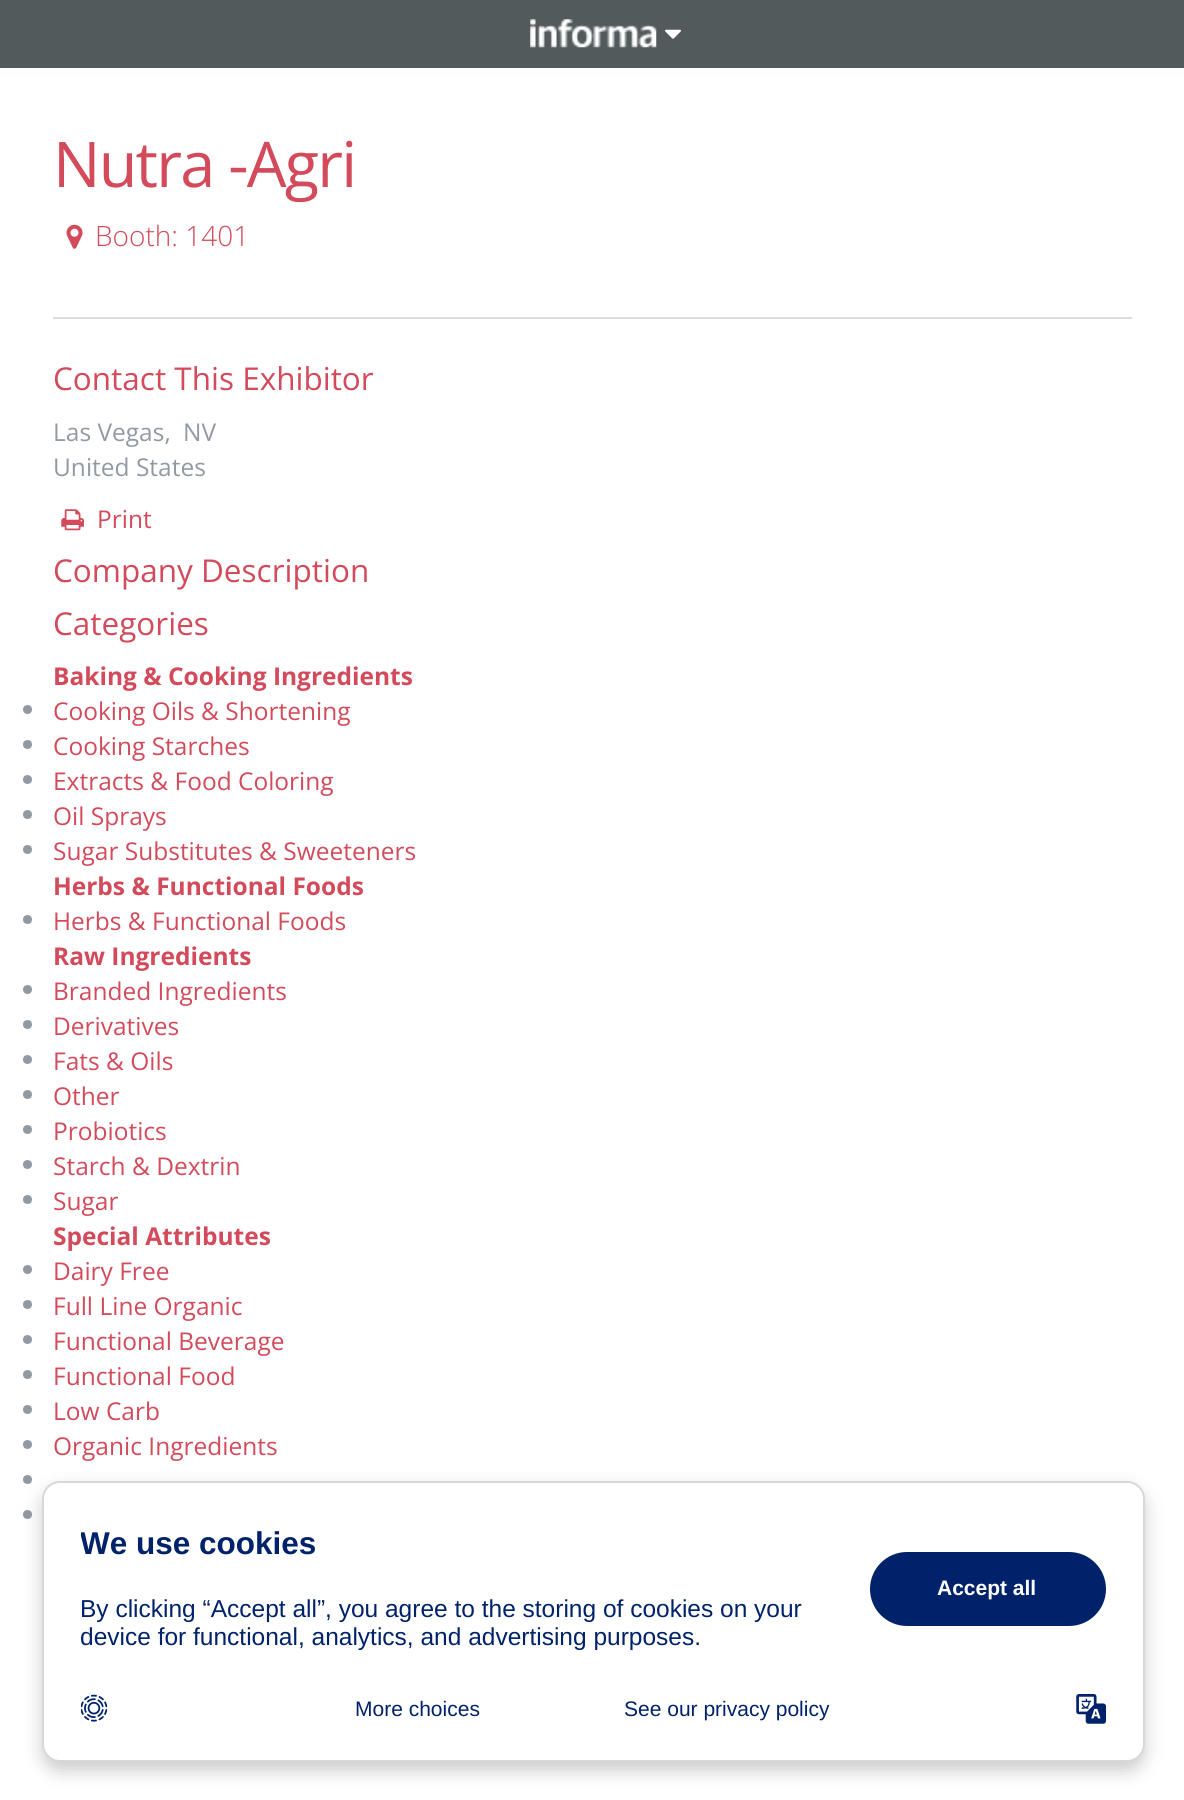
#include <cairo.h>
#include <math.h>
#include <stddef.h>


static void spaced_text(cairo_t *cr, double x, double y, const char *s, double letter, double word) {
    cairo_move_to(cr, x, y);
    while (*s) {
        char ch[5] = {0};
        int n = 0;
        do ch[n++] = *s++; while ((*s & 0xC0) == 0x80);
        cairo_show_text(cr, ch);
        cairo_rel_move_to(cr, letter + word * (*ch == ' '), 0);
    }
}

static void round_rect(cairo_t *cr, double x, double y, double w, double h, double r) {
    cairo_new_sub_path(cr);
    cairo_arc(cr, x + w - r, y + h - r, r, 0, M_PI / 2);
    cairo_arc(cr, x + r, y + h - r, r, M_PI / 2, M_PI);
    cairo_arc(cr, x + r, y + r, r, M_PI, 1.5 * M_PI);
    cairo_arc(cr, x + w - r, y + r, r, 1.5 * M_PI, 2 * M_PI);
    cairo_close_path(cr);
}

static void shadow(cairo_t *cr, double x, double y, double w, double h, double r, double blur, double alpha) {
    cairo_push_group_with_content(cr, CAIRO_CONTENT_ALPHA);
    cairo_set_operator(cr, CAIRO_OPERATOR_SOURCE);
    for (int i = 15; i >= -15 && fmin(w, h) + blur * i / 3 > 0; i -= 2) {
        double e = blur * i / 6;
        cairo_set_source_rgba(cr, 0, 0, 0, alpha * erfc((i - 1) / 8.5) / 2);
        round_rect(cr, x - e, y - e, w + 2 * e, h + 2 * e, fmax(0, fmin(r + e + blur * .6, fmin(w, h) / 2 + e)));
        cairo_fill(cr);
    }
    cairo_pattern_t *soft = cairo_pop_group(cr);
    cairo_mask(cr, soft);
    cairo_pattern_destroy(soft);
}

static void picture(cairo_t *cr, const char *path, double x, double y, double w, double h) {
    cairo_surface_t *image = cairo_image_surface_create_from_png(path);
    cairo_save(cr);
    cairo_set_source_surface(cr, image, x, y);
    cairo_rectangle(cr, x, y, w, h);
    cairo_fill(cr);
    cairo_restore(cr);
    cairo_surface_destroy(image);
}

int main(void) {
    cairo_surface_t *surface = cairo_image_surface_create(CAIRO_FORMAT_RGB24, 1184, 1800);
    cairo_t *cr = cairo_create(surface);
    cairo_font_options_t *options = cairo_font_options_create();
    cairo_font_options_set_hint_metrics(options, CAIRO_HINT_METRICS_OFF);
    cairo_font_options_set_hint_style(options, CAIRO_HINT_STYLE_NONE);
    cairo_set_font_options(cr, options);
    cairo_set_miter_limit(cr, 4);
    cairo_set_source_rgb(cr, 1, 1, 1);
    cairo_paint(cr);
    cairo_set_source_rgb(cr, 0.322, 0.353, 0.361);
    cairo_rectangle(cr, 0, 0, 1184, 68);
    cairo_fill(cr);
    picture(cr, "img1.png", 530, 19, 127, 29);
    picture(cr, "img2.png", 665, 29, 16, 10);
    cairo_select_font_face(cr, "Open Sans", CAIRO_FONT_SLANT_NORMAL, CAIRO_FONT_WEIGHT_NORMAL);
    cairo_set_font_size(cr, 63);
    cairo_set_source_rgb(cr, 0.827, 0.29, 0.357);
    spaced_text(cr, 53, 187, "Nutra -Agri", -1.75, 0);
    picture(cr, "img3.png", 66, 224, 17, 25);
    cairo_select_font_face(cr, "Open Sans Light", CAIRO_FONT_SLANT_NORMAL, CAIRO_FONT_WEIGHT_NORMAL);
    cairo_set_font_size(cr, 28);
    cairo_move_to(cr, 95, 246);
    cairo_show_text(cr, "Booth: 1401");
    cairo_set_source_rgb(cr, 0.859, 0.871, 0.882);
    cairo_rectangle(cr, 53, 317, 1079, 2);
    cairo_fill(cr);
    cairo_select_font_face(cr, "Open Sans", CAIRO_FONT_SLANT_NORMAL, CAIRO_FONT_WEIGHT_NORMAL);
    cairo_set_font_size(cr, 31.5);
    cairo_set_source_rgb(cr, 0.827, 0.29, 0.357);
    cairo_move_to(cr, 53, 390);
    cairo_show_text(cr, "Contact This Exhibitor");
    cairo_set_font_size(cr, 24.5);
    cairo_set_source_rgb(cr, 0.569, 0.604, 0.639);
    cairo_move_to(cr, 53, 441);
    cairo_show_text(cr, "Las Vegas,");
    cairo_move_to(cr, 183, 441);
    cairo_show_text(cr, "NV");
    cairo_move_to(cr, 53, 476);
    cairo_show_text(cr, "United States");
    picture(cr, "img4.png", 61, 509, 23, 22);
    cairo_set_source_rgb(cr, 0.827, 0.29, 0.357);
    cairo_move_to(cr, 97, 528);
    cairo_show_text(cr, "Print");
    cairo_set_font_size(cr, 31.5);
    cairo_move_to(cr, 53, 582);
    cairo_show_text(cr, "Company Description");
    cairo_move_to(cr, 53, 635);
    cairo_show_text(cr, "Categories");
    cairo_select_font_face(cr, "Open Sans", CAIRO_FONT_SLANT_NORMAL, CAIRO_FONT_WEIGHT_BOLD);
    cairo_set_font_size(cr, 24.5);
    cairo_move_to(cr, 53, 685);
    cairo_show_text(cr, "Baking & Cooking Ingredients");
    cairo_set_source_rgb(cr, 0.569, 0.604, 0.639);
    cairo_new_path(cr);
    cairo_arc(cr, 27.5, 709.5, 4.5, 0, 2 * M_PI);
    cairo_fill(cr);
    cairo_select_font_face(cr, "Open Sans", CAIRO_FONT_SLANT_NORMAL, CAIRO_FONT_WEIGHT_NORMAL);
    cairo_set_source_rgb(cr, 0.827, 0.29, 0.357);
    cairo_move_to(cr, 53, 720);
    cairo_show_text(cr, "Cooking Oils & Shortening");
    cairo_set_source_rgb(cr, 0.569, 0.604, 0.639);
    cairo_new_path(cr);
    cairo_arc(cr, 27.5, 744.5, 4.5, 0, 2 * M_PI);
    cairo_fill(cr);
    cairo_set_source_rgb(cr, 0.827, 0.29, 0.357);
    cairo_move_to(cr, 53, 755);
    cairo_show_text(cr, "Cooking Starches");
    cairo_set_source_rgb(cr, 0.569, 0.604, 0.639);
    cairo_new_path(cr);
    cairo_arc(cr, 27.5, 779.5, 4.5, 0, 2 * M_PI);
    cairo_fill(cr);
    cairo_set_source_rgb(cr, 0.827, 0.29, 0.357);
    cairo_move_to(cr, 53, 790);
    cairo_show_text(cr, "Extracts & Food Coloring");
    cairo_set_source_rgb(cr, 0.569, 0.604, 0.639);
    cairo_new_path(cr);
    cairo_arc(cr, 27.5, 814.5, 4.5, 0, 2 * M_PI);
    cairo_fill(cr);
    cairo_set_source_rgb(cr, 0.827, 0.29, 0.357);
    cairo_move_to(cr, 53, 825);
    cairo_show_text(cr, "Oil Sprays");
    cairo_set_source_rgb(cr, 0.569, 0.604, 0.639);
    cairo_new_path(cr);
    cairo_arc(cr, 27.5, 849.5, 4.5, 0, 2 * M_PI);
    cairo_fill(cr);
    cairo_set_source_rgb(cr, 0.827, 0.29, 0.357);
    cairo_move_to(cr, 53, 860);
    cairo_show_text(cr, "Sugar Substitutes & Sweeteners");
    cairo_select_font_face(cr, "Open Sans", CAIRO_FONT_SLANT_NORMAL, CAIRO_FONT_WEIGHT_BOLD);
    cairo_move_to(cr, 53, 895);
    cairo_show_text(cr, "Herbs & Functional Foods");
    cairo_set_source_rgb(cr, 0.569, 0.604, 0.639);
    cairo_new_path(cr);
    cairo_arc(cr, 27.5, 919.5, 4.5, 0, 2 * M_PI);
    cairo_fill(cr);
    cairo_select_font_face(cr, "Open Sans", CAIRO_FONT_SLANT_NORMAL, CAIRO_FONT_WEIGHT_NORMAL);
    cairo_set_source_rgb(cr, 0.827, 0.29, 0.357);
    cairo_move_to(cr, 53, 930);
    cairo_show_text(cr, "Herbs & Functional Foods");
    cairo_select_font_face(cr, "Open Sans", CAIRO_FONT_SLANT_NORMAL, CAIRO_FONT_WEIGHT_BOLD);
    cairo_move_to(cr, 53, 965);
    cairo_show_text(cr, "Raw Ingredients");
    cairo_set_source_rgb(cr, 0.569, 0.604, 0.639);
    cairo_new_path(cr);
    cairo_arc(cr, 27.5, 989.5, 4.5, 0, 2 * M_PI);
    cairo_fill(cr);
    cairo_select_font_face(cr, "Open Sans", CAIRO_FONT_SLANT_NORMAL, CAIRO_FONT_WEIGHT_NORMAL);
    cairo_set_source_rgb(cr, 0.827, 0.29, 0.357);
    cairo_move_to(cr, 53, 1000);
    cairo_show_text(cr, "Branded Ingredients");
    cairo_set_source_rgb(cr, 0.569, 0.604, 0.639);
    cairo_new_path(cr);
    cairo_arc(cr, 27.5, 1024.5, 4.5, 0, 2 * M_PI);
    cairo_fill(cr);
    cairo_set_source_rgb(cr, 0.827, 0.29, 0.357);
    cairo_move_to(cr, 53, 1035);
    cairo_show_text(cr, "Derivatives");
    cairo_set_source_rgb(cr, 0.569, 0.604, 0.639);
    cairo_new_path(cr);
    cairo_arc(cr, 27.5, 1059.5, 4.5, 0, 2 * M_PI);
    cairo_fill(cr);
    cairo_set_source_rgb(cr, 0.827, 0.29, 0.357);
    cairo_move_to(cr, 53, 1070);
    cairo_show_text(cr, "Fats & Oils");
    cairo_set_source_rgb(cr, 0.569, 0.604, 0.639);
    cairo_new_path(cr);
    cairo_arc(cr, 27.5, 1094.5, 4.5, 0, 2 * M_PI);
    cairo_fill(cr);
    cairo_set_source_rgb(cr, 0.827, 0.29, 0.357);
    cairo_move_to(cr, 53, 1105);
    cairo_show_text(cr, "Other");
    cairo_set_source_rgb(cr, 0.569, 0.604, 0.639);
    cairo_new_path(cr);
    cairo_arc(cr, 27.5, 1129.5, 4.5, 0, 2 * M_PI);
    cairo_fill(cr);
    cairo_set_source_rgb(cr, 0.827, 0.29, 0.357);
    cairo_move_to(cr, 53, 1140);
    cairo_show_text(cr, "Probiotics");
    cairo_set_source_rgb(cr, 0.569, 0.604, 0.639);
    cairo_new_path(cr);
    cairo_arc(cr, 27.5, 1164.5, 4.5, 0, 2 * M_PI);
    cairo_fill(cr);
    cairo_set_source_rgb(cr, 0.827, 0.29, 0.357);
    cairo_move_to(cr, 53, 1175);
    cairo_show_text(cr, "Starch & Dextrin");
    cairo_set_source_rgb(cr, 0.569, 0.604, 0.639);
    cairo_new_path(cr);
    cairo_arc(cr, 27.5, 1199.5, 4.5, 0, 2 * M_PI);
    cairo_fill(cr);
    cairo_set_source_rgb(cr, 0.827, 0.29, 0.357);
    cairo_move_to(cr, 53, 1210);
    cairo_show_text(cr, "Sugar");
    cairo_select_font_face(cr, "Open Sans", CAIRO_FONT_SLANT_NORMAL, CAIRO_FONT_WEIGHT_BOLD);
    cairo_move_to(cr, 53, 1245);
    cairo_show_text(cr, "Special Attributes");
    cairo_set_source_rgb(cr, 0.569, 0.604, 0.639);
    cairo_new_path(cr);
    cairo_arc(cr, 27.5, 1269.5, 4.5, 0, 2 * M_PI);
    cairo_fill(cr);
    cairo_select_font_face(cr, "Open Sans", CAIRO_FONT_SLANT_NORMAL, CAIRO_FONT_WEIGHT_NORMAL);
    cairo_set_source_rgb(cr, 0.827, 0.29, 0.357);
    cairo_move_to(cr, 53, 1280);
    cairo_show_text(cr, "Dairy Free");
    cairo_set_source_rgb(cr, 0.569, 0.604, 0.639);
    cairo_new_path(cr);
    cairo_arc(cr, 27.5, 1304.5, 4.5, 0, 2 * M_PI);
    cairo_fill(cr);
    cairo_set_source_rgb(cr, 0.827, 0.29, 0.357);
    cairo_move_to(cr, 53, 1315);
    cairo_show_text(cr, "Full Line Organic");
    cairo_set_source_rgb(cr, 0.569, 0.604, 0.639);
    cairo_new_path(cr);
    cairo_arc(cr, 27.5, 1339.5, 4.5, 0, 2 * M_PI);
    cairo_fill(cr);
    cairo_set_source_rgb(cr, 0.827, 0.29, 0.357);
    cairo_move_to(cr, 53, 1350);
    cairo_show_text(cr, "Functional Beverage");
    cairo_set_source_rgb(cr, 0.569, 0.604, 0.639);
    cairo_new_path(cr);
    cairo_arc(cr, 27.5, 1374.5, 4.5, 0, 2 * M_PI);
    cairo_fill(cr);
    cairo_set_source_rgb(cr, 0.827, 0.29, 0.357);
    cairo_move_to(cr, 53, 1385);
    cairo_show_text(cr, "Functional Food");
    cairo_set_source_rgb(cr, 0.569, 0.604, 0.639);
    cairo_new_path(cr);
    cairo_arc(cr, 27.5, 1409.5, 4.5, 0, 2 * M_PI);
    cairo_fill(cr);
    cairo_set_source_rgb(cr, 0.827, 0.29, 0.357);
    cairo_move_to(cr, 53, 1420);
    cairo_show_text(cr, "Low Carb");
    cairo_set_source_rgb(cr, 0.569, 0.604, 0.639);
    cairo_new_path(cr);
    cairo_arc(cr, 27.5, 1444.5, 4.5, 0, 2 * M_PI);
    cairo_fill(cr);
    cairo_set_source_rgb(cr, 0.827, 0.29, 0.357);
    cairo_move_to(cr, 53, 1455);
    cairo_show_text(cr, "Organic Ingredients");
    cairo_set_source_rgb(cr, 0.569, 0.604, 0.639);
    cairo_new_path(cr);
    cairo_arc(cr, 27.5, 1479.5, 4.5, 0, 2 * M_PI);
    cairo_fill(cr);
    cairo_arc(cr, 27.5, 1514.5, 4.5, 0, 2 * M_PI);
    cairo_fill(cr);
    cairo_set_source_rgb(cr, 0, 0, 0);
    shadow(cr, 42, 1489, 1103, 282, 18, 9, 0.2);
    cairo_set_source_rgb(cr, 1, 1, 1);
    round_rect(cr, 43, 1482, 1101, 279, 17);
    cairo_fill_preserve(cr);
    cairo_set_source_rgb(cr, 0.847, 0.847, 0.847);
    cairo_stroke(cr);
    cairo_save(cr);
    cairo_rectangle(cr, 81, 1519, 1025, 138);
    cairo_clip(cr);
    cairo_select_font_face(cr, "Liberation Sans", CAIRO_FONT_SLANT_NORMAL, CAIRO_FONT_WEIGHT_BOLD);
    cairo_set_font_size(cr, 31.5);
    cairo_set_source_rgb(cr, 0, 0.133, 0.416);
    cairo_move_to(cr, 80, 1554);
    cairo_show_text(cr, "We use cookies");
    cairo_restore(cr);
    cairo_select_font_face(cr, "Liberation Sans", CAIRO_FONT_SLANT_NORMAL, CAIRO_FONT_WEIGHT_NORMAL);
    cairo_set_source_rgb(cr, 0, 0.133, 0.416);
    cairo_move_to(cr, 80, 1617);
    cairo_show_text(cr, "By clicking “Accept all”, you agree to the storing of cookies on your");
    cairo_save(cr);
    cairo_rectangle(cr, 81, 1519, 1025, 138);
    cairo_clip(cr);
    cairo_move_to(cr, 80, 1645);
    cairo_show_text(cr, "device for functional, analytics, and advertising purposes.");
    cairo_restore(cr);
    round_rect(cr, 870, 1552, 236, 74, 37);
    cairo_fill(cr);
    cairo_select_font_face(cr, "Liberation Sans", CAIRO_FONT_SLANT_NORMAL, CAIRO_FONT_WEIGHT_BOLD);
    cairo_set_font_size(cr, 21);
    cairo_set_source_rgb(cr, 1, 1, 1);
    cairo_move_to(cr, 937, 1595);
    cairo_show_text(cr, "Accept all");
    picture(cr, "img5.png", 81, 1694, 27, 28);
    cairo_select_font_face(cr, "Liberation Sans", CAIRO_FONT_SLANT_NORMAL, CAIRO_FONT_WEIGHT_NORMAL);
    cairo_set_source_rgb(cr, 0, 0.133, 0.416);
    cairo_move_to(cr, 355, 1716);
    cairo_show_text(cr, "More choices");
    cairo_move_to(cr, 624, 1716);
    cairo_show_text(cr, "See our privacy policy");
    picture(cr, "img6.png", 1076, 1694, 30, 30);
    cairo_surface_write_to_png(surface, "page.png");
    cairo_font_options_destroy(options);
    cairo_destroy(cr);
    cairo_surface_destroy(surface);
    return 0;
}
